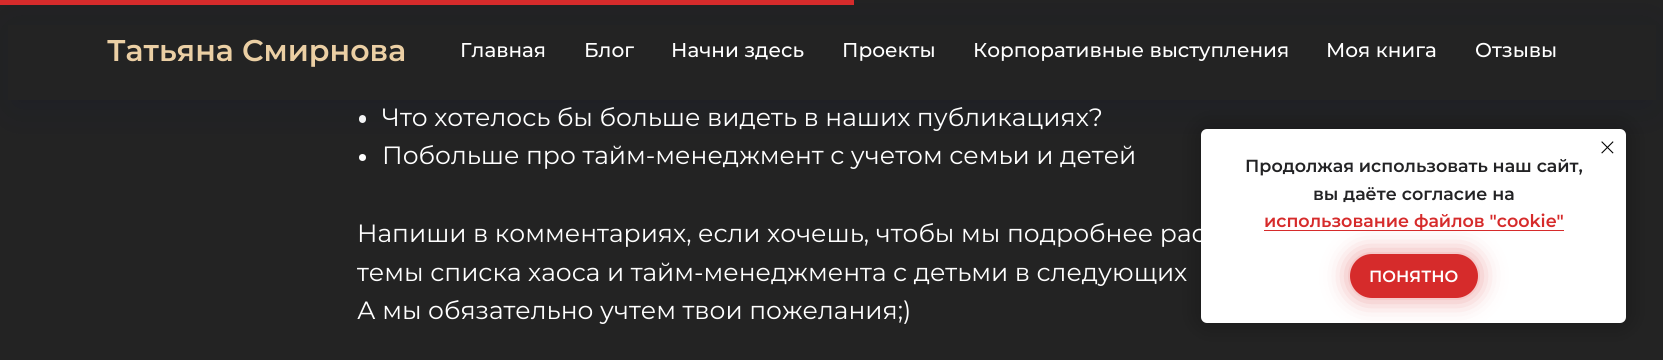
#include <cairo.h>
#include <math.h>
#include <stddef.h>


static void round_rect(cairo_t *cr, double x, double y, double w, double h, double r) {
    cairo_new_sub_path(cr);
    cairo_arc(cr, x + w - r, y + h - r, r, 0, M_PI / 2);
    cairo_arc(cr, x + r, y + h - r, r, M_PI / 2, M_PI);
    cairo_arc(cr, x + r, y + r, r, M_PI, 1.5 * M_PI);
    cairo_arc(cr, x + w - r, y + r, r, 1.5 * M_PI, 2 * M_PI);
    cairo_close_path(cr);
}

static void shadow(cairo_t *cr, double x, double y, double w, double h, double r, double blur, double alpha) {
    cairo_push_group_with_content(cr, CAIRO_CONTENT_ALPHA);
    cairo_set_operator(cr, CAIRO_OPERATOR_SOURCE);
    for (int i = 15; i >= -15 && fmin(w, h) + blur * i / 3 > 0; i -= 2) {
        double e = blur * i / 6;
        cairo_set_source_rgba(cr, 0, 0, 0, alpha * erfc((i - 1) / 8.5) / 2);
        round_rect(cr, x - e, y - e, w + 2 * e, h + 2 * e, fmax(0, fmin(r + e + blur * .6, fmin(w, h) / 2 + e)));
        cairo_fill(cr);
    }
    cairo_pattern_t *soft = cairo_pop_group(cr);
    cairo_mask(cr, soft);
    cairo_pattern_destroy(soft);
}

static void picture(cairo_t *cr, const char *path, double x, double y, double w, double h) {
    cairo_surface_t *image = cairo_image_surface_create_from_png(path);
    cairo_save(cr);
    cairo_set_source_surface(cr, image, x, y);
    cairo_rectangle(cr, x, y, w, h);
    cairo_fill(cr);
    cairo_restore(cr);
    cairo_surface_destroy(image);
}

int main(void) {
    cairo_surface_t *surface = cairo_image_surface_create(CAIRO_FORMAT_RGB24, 1663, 360);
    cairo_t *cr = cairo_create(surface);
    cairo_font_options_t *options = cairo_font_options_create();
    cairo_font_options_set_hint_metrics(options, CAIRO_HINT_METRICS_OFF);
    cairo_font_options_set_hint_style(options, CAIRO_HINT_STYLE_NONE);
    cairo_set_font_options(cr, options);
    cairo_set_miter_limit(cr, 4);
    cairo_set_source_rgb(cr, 0.137, 0.137, 0.137);
    cairo_paint(cr);
    cairo_set_source_rgb(cr, 1, 1, 1);
    round_rect(cr, 359, 115, 7, 8, 3.5);
    cairo_fill(cr);
    cairo_arc(cr, 362.5, 157.5, 3.5, 0, 2 * M_PI);
    cairo_fill(cr);
    cairo_set_source_rgb(cr, 0, 0.043, 0.188);
    shadow(cr, 13, 31, 1638, 75, 0, 19, 0.2);
    cairo_set_source_rgb(cr, 0.839, 0.169, 0.169);
    cairo_rectangle(cr, 0, 0, 854, 5);
    cairo_fill(cr);
    cairo_set_source_rgb(cr, 0.137, 0.137, 0.137);
    cairo_rectangle(cr, 8, 25, 1648, 75);
    cairo_fill(cr);
    cairo_select_font_face(cr, "Montserrat SemiBold", CAIRO_FONT_SLANT_NORMAL, CAIRO_FONT_WEIGHT_NORMAL);
    cairo_set_font_size(cr, 30);
    cairo_set_source_rgb(cr, 0.918, 0.812, 0.643);
    cairo_move_to(cr, 107, 61);
    cairo_show_text(cr, "Татьяна Смирнова");
    cairo_select_font_face(cr, "Montserrat Medium", CAIRO_FONT_SLANT_NORMAL, CAIRO_FONT_WEIGHT_NORMAL);
    cairo_set_font_size(cr, 20);
    cairo_set_source_rgb(cr, 1, 1, 1);
    cairo_move_to(cr, 460, 57);
    cairo_show_text(cr, "Главная");
    cairo_move_to(cr, 584, 57);
    cairo_show_text(cr, "Блог");
    cairo_move_to(cr, 671, 57);
    cairo_show_text(cr, "Начни здесь");
    cairo_move_to(cr, 842, 57);
    cairo_show_text(cr, "Проекты");
    cairo_move_to(cr, 973, 57);
    cairo_show_text(cr, "Корпоративные выступления");
    cairo_move_to(cr, 1326, 57);
    cairo_show_text(cr, "Моя книга");
    cairo_move_to(cr, 1475, 57);
    cairo_show_text(cr, "Отзывы");
    cairo_set_source_rgb(cr, 0, 0, 0);
    shadow(cr, 1201, 129, 425, 194, 6, 12.5, 0.3);
    cairo_set_source_rgb(cr, 1, 1, 1);
    round_rect(cr, 1201, 129, 425, 194, 6);
    cairo_fill(cr);
    picture(cr, "img1.png", 1601, 141, 13, 13);
    cairo_select_font_face(cr, "Montserrat SemiBold", CAIRO_FONT_SLANT_NORMAL, CAIRO_FONT_WEIGHT_NORMAL);
    cairo_set_font_size(cr, 17.5);
    cairo_set_source_rgb(cr, 0.137, 0.137, 0.145);
    cairo_move_to(cr, 1245, 172);
    cairo_show_text(cr, "Продолжая использовать наш сайт,");
    cairo_move_to(cr, 1313, 200);
    cairo_show_text(cr, "вы даёте согласие на");
    cairo_set_source_rgb(cr, 0.839, 0.169, 0.169);
    cairo_rectangle(cr, 1264, 230, 300, 1);
    cairo_fill(cr);
    cairo_move_to(cr, 1264, 227);
    cairo_show_text(cr, "использование файлов \"cookie\"");
    cairo_set_source_rgb(cr, 0.839, 0.169, 0.169);
    shadow(cr, 1350, 254, 128, 44, 22, 12.5, 0.5);
    cairo_set_source_rgb(cr, 0.839, 0.169, 0.169);
    round_rect(cr, 1350, 254, 128, 44, 22);
    cairo_fill(cr);
    cairo_set_font_size(cr, 16.25);
    cairo_set_source_rgb(cr, 1, 1, 1);
    cairo_move_to(cr, 1369, 282);
    cairo_show_text(cr, "ПОНЯТНО");
    cairo_select_font_face(cr, "Montserrat", CAIRO_FONT_SLANT_NORMAL, CAIRO_FONT_WEIGHT_NORMAL);
    cairo_set_font_size(cr, 25);
    cairo_move_to(cr, 382, 126);
    cairo_show_text(cr, "Что хотелось бы больше видеть в наших публикациях?");
    cairo_move_to(cr, 382, 164);
    cairo_show_text(cr, "Побольше про тайм-менеджмент с учетом семьи и детей");
    cairo_move_to(cr, 357, 242);
    cairo_show_text(cr, "Напиши в комментариях, если хочешь, чтобы мы подробнее рас");
    cairo_move_to(cr, 357, 281);
    cairo_show_text(cr, "темы списка хаоса и тайм-менеджмента с детьми в следующих");
    cairo_move_to(cr, 357, 319);
    cairo_show_text(cr, "А мы обязательно учтем твои пожелания;)");
    cairo_surface_write_to_png(surface, "page.png");
    cairo_font_options_destroy(options);
    cairo_destroy(cr);
    cairo_surface_destroy(surface);
    return 0;
}
